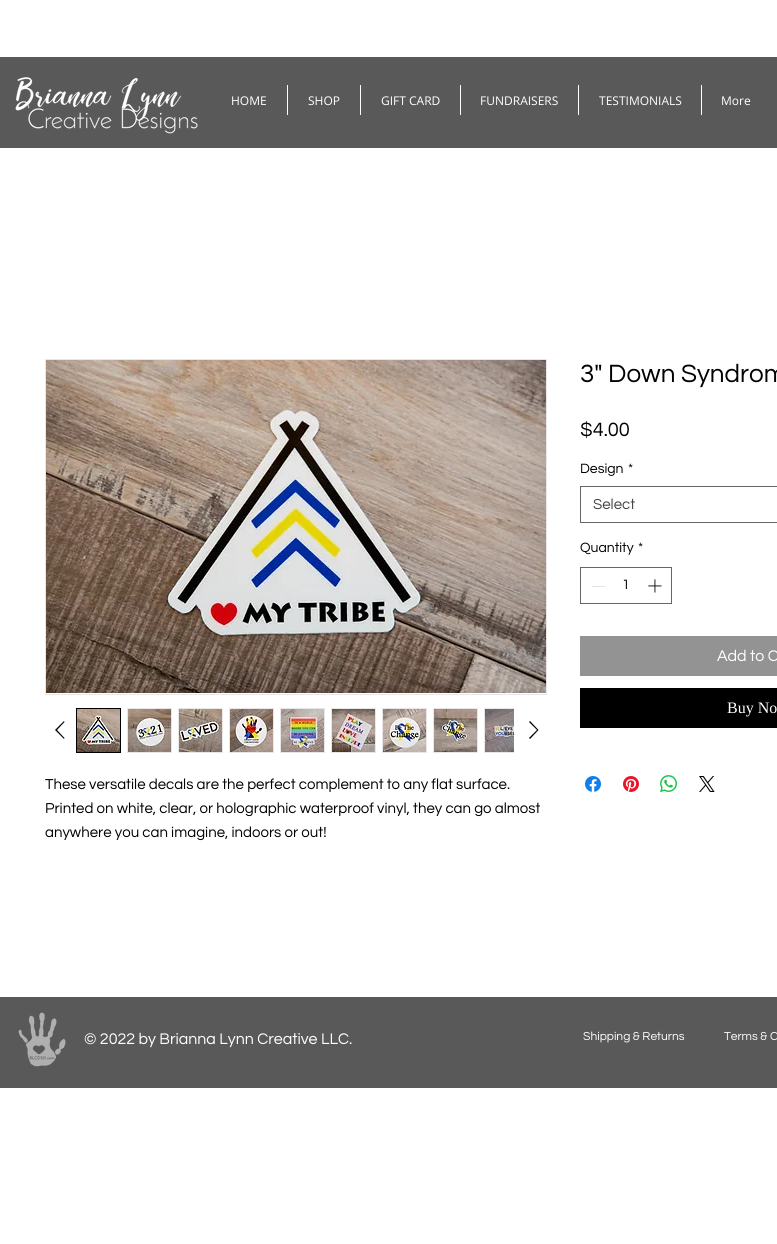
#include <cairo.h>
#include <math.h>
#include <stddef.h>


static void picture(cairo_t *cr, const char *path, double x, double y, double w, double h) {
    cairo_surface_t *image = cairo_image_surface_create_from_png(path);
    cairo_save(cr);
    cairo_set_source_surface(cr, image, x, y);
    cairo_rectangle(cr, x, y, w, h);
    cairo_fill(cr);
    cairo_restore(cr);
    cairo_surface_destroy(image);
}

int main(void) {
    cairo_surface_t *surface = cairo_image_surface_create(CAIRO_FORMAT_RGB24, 777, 1244);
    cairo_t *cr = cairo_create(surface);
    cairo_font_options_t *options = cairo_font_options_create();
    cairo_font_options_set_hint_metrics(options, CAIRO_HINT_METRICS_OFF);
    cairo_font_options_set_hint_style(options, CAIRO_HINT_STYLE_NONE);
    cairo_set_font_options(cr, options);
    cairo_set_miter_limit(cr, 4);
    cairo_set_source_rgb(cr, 1, 1, 1);
    cairo_paint(cr);
    cairo_set_source_rgb(cr, 0.349, 0.349, 0.349);
    cairo_rectangle(cr, 0, 57, 777, 91);
    cairo_fill(cr);
    picture(cr, "img1.png", 15, 77, 183, 57);
    cairo_select_font_face(cr, "Open Sans", CAIRO_FONT_SLANT_NORMAL, CAIRO_FONT_WEIGHT_NORMAL);
    cairo_set_font_size(cr, 12);
    cairo_set_source_rgb(cr, 1, 1, 1);
    cairo_move_to(cr, 231, 105);
    cairo_show_text(cr, "HOME");
    cairo_rectangle(cr, 287, 85, 1, 30);
    cairo_fill(cr);
    cairo_move_to(cr, 308, 105);
    cairo_show_text(cr, "SHOP");
    cairo_rectangle(cr, 360, 85, 1, 30);
    cairo_fill(cr);
    cairo_move_to(cr, 381, 105);
    cairo_show_text(cr, "GIFT CARD");
    cairo_rectangle(cr, 460, 85, 1, 30);
    cairo_fill(cr);
    cairo_move_to(cr, 480, 105);
    cairo_show_text(cr, "FUNDRAISERS");
    cairo_rectangle(cr, 578, 85, 1, 30);
    cairo_fill(cr);
    cairo_move_to(cr, 599, 105);
    cairo_show_text(cr, "TESTIMONIALS");
    cairo_rectangle(cr, 701, 85, 1, 30);
    cairo_fill(cr);
    cairo_move_to(cr, 721, 105);
    cairo_show_text(cr, "More");
    cairo_select_font_face(cr, "Questrial", CAIRO_FONT_SLANT_NORMAL, CAIRO_FONT_WEIGHT_NORMAL);
    cairo_set_font_size(cr, 26);
    cairo_set_source_rgb(cr, 0, 0, 0);
    cairo_move_to(cr, 580, 382);
    cairo_show_text(cr, "3\" Down Syndrom");
    cairo_set_font_size(cr, 20);
    cairo_move_to(cr, 580, 436);
    cairo_show_text(cr, "$4.00");
    cairo_set_font_size(cr, 14);
    cairo_move_to(cr, 580, 473);
    cairo_show_text(cr, "Design");
    cairo_move_to(cr, 628, 473);
    cairo_show_text(cr, "*");
    cairo_rectangle(cr, 580.5, 486.5, 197, 36);
    cairo_set_source_rgb(cr, 0.4, 0.4, 0.4);
    cairo_set_line_width(cr, 1);
    cairo_stroke(cr);
    cairo_set_font_size(cr, 15);
    cairo_set_source_rgb(cr, 0.267, 0.267, 0.267);
    cairo_move_to(cr, 593, 509);
    cairo_show_text(cr, "Select");
    cairo_set_font_size(cr, 14);
    cairo_set_source_rgb(cr, 0, 0, 0);
    cairo_move_to(cr, 580, 552);
    cairo_show_text(cr, "Quantity");
    cairo_move_to(cr, 638, 552);
    cairo_show_text(cr, "*");
    cairo_rectangle(cr, 580.5, 567.5, 91, 36);
    cairo_set_source_rgb(cr, 0.4, 0.4, 0.4);
    cairo_stroke(cr);
    cairo_set_source_rgb(cr, 0.89, 0.89, 0.89);
    cairo_rectangle(cr, 592, 586, 13, 1);
    cairo_fill(cr);
    cairo_set_source_rgb(cr, 0, 0, 0);
    cairo_move_to(cr, 622, 589);
    cairo_show_text(cr, "1");
    picture(cr, "img2.png", 648, 579, 14, 14);
    cairo_set_source_rgb(cr, 0.576, 0.576, 0.58);
    cairo_rectangle(cr, 580, 636, 197, 40);
    cairo_fill(cr);
    cairo_set_font_size(cr, 16);
    cairo_set_source_rgb(cr, 1, 1, 1);
    cairo_move_to(cr, 717, 661);
    cairo_show_text(cr, "Add to C");
    cairo_set_source_rgb(cr, 0, 0, 0);
    cairo_rectangle(cr, 580, 688, 197, 40);
    cairo_fill(cr);
    cairo_select_font_face(cr, "Liberation Serif", CAIRO_FONT_SLANT_NORMAL, CAIRO_FONT_WEIGHT_NORMAL);
    cairo_set_source_rgb(cr, 1, 1, 1);
    cairo_move_to(cr, 727, 713);
    cairo_show_text(cr, "Buy No");
    picture(cr, "img3.png", 585, 776, 16, 16);
    picture(cr, "img4.png", 623, 776, 16, 16);
    picture(cr, "img5.png", 660, 775, 17, 17);
    picture(cr, "img6.png", 699, 776, 16, 16);
    cairo_rectangle(cr, 45.5, 359.5, 501, 335);
    cairo_set_source_rgb(cr, 0.91, 0.902, 0.902);
    cairo_stroke(cr);
    picture(cr, "img7.png", 46, 360, 500, 333);
    cairo_set_source_rgb(cr, 0, 0, 0);
    cairo_set_fill_rule(cr, CAIRO_FILL_RULE_EVEN_ODD);
    cairo_new_path(cr);
    cairo_move_to(cr, 64, 721);
    cairo_line_to(cr, 64.5, 722);
    cairo_line_to(cr, 57, 730);
    cairo_line_to(cr, 64.5, 738);
    cairo_line_to(cr, 64, 739);
    cairo_line_to(cr, 55, 730);
    cairo_close_path(cr);
    cairo_fill(cr);
    cairo_rectangle(cr, 76.5, 708.5, 44, 44);
    cairo_stroke(cr);
    picture(cr, "img8.png", 77, 709, 43, 43);
    cairo_set_source_rgb(cr, 0.91, 0.902, 0.902);
    cairo_rectangle(cr, 127, 708, 45, 45);
    cairo_fill(cr);
    picture(cr, "img9.png", 128, 709, 43, 43);
    cairo_rectangle(cr, 178, 708, 45, 45);
    cairo_fill(cr);
    picture(cr, "img10.png", 179, 709, 43, 43);
    cairo_rectangle(cr, 229, 708, 45, 45);
    cairo_fill(cr);
    picture(cr, "img11.png", 230, 709, 43, 43);
    cairo_rectangle(cr, 280, 708, 45, 45);
    cairo_fill(cr);
    picture(cr, "img12.png", 281, 709, 43, 43);
    cairo_rectangle(cr, 331, 708, 45, 45);
    cairo_fill(cr);
    picture(cr, "img13.png", 332, 709, 43, 43);
    cairo_rectangle(cr, 382, 708, 45, 45);
    cairo_fill(cr);
    picture(cr, "img14.png", 383, 709, 43, 43);
    cairo_rectangle(cr, 433, 708, 45, 45);
    cairo_fill(cr);
    picture(cr, "img15.png", 434, 709, 43, 43);
    cairo_rectangle(cr, 484, 708, 30, 45);
    cairo_fill(cr);
    picture(cr, "img16.png", 485, 709, 29, 43);
    cairo_set_source_rgb(cr, 0, 0, 0);
    cairo_new_path(cr);
    cairo_move_to(cr, 530, 721);
    cairo_line_to(cr, 538.5, 730);
    cairo_line_to(cr, 530, 739);
    cairo_line_to(cr, 529, 738);
    cairo_line_to(cr, 537, 730);
    cairo_line_to(cr, 529, 722);
    cairo_close_path(cr);
    cairo_fill(cr);
    cairo_select_font_face(cr, "Questrial", CAIRO_FONT_SLANT_NORMAL, CAIRO_FONT_WEIGHT_NORMAL);
    cairo_set_font_size(cr, 15);
    cairo_move_to(cr, 45, 789);
    cairo_show_text(cr, "These versatile decals are the perfect complement to any flat surface.");
    cairo_move_to(cr, 45, 813);
    cairo_show_text(cr, "Printed on white, clear, or holographic waterproof vinyl, they can go almost");
    cairo_move_to(cr, 45, 837);
    cairo_show_text(cr, "anywhere you can imagine, indoors or out!");
    cairo_set_source_rgb(cr, 0.349, 0.349, 0.349);
    cairo_rectangle(cr, 0, 997, 777, 91);
    cairo_fill(cr);
    picture(cr, "img17.png", 18, 1012, 48, 55);
    cairo_set_font_size(cr, 16);
    cairo_set_source_rgb(cr, 1, 1, 1);
    cairo_move_to(cr, 84, 1044);
    cairo_show_text(cr, "© 2022 by Brianna Lynn Creative LLC.");
    cairo_set_font_size(cr, 12);
    cairo_move_to(cr, 583, 1040);
    cairo_show_text(cr, "Shipping & Returns");
    cairo_move_to(cr, 724, 1040);
    cairo_show_text(cr, "Terms & C");
    cairo_surface_write_to_png(surface, "page.png");
    cairo_font_options_destroy(options);
    cairo_destroy(cr);
    cairo_surface_destroy(surface);
    return 0;
}
